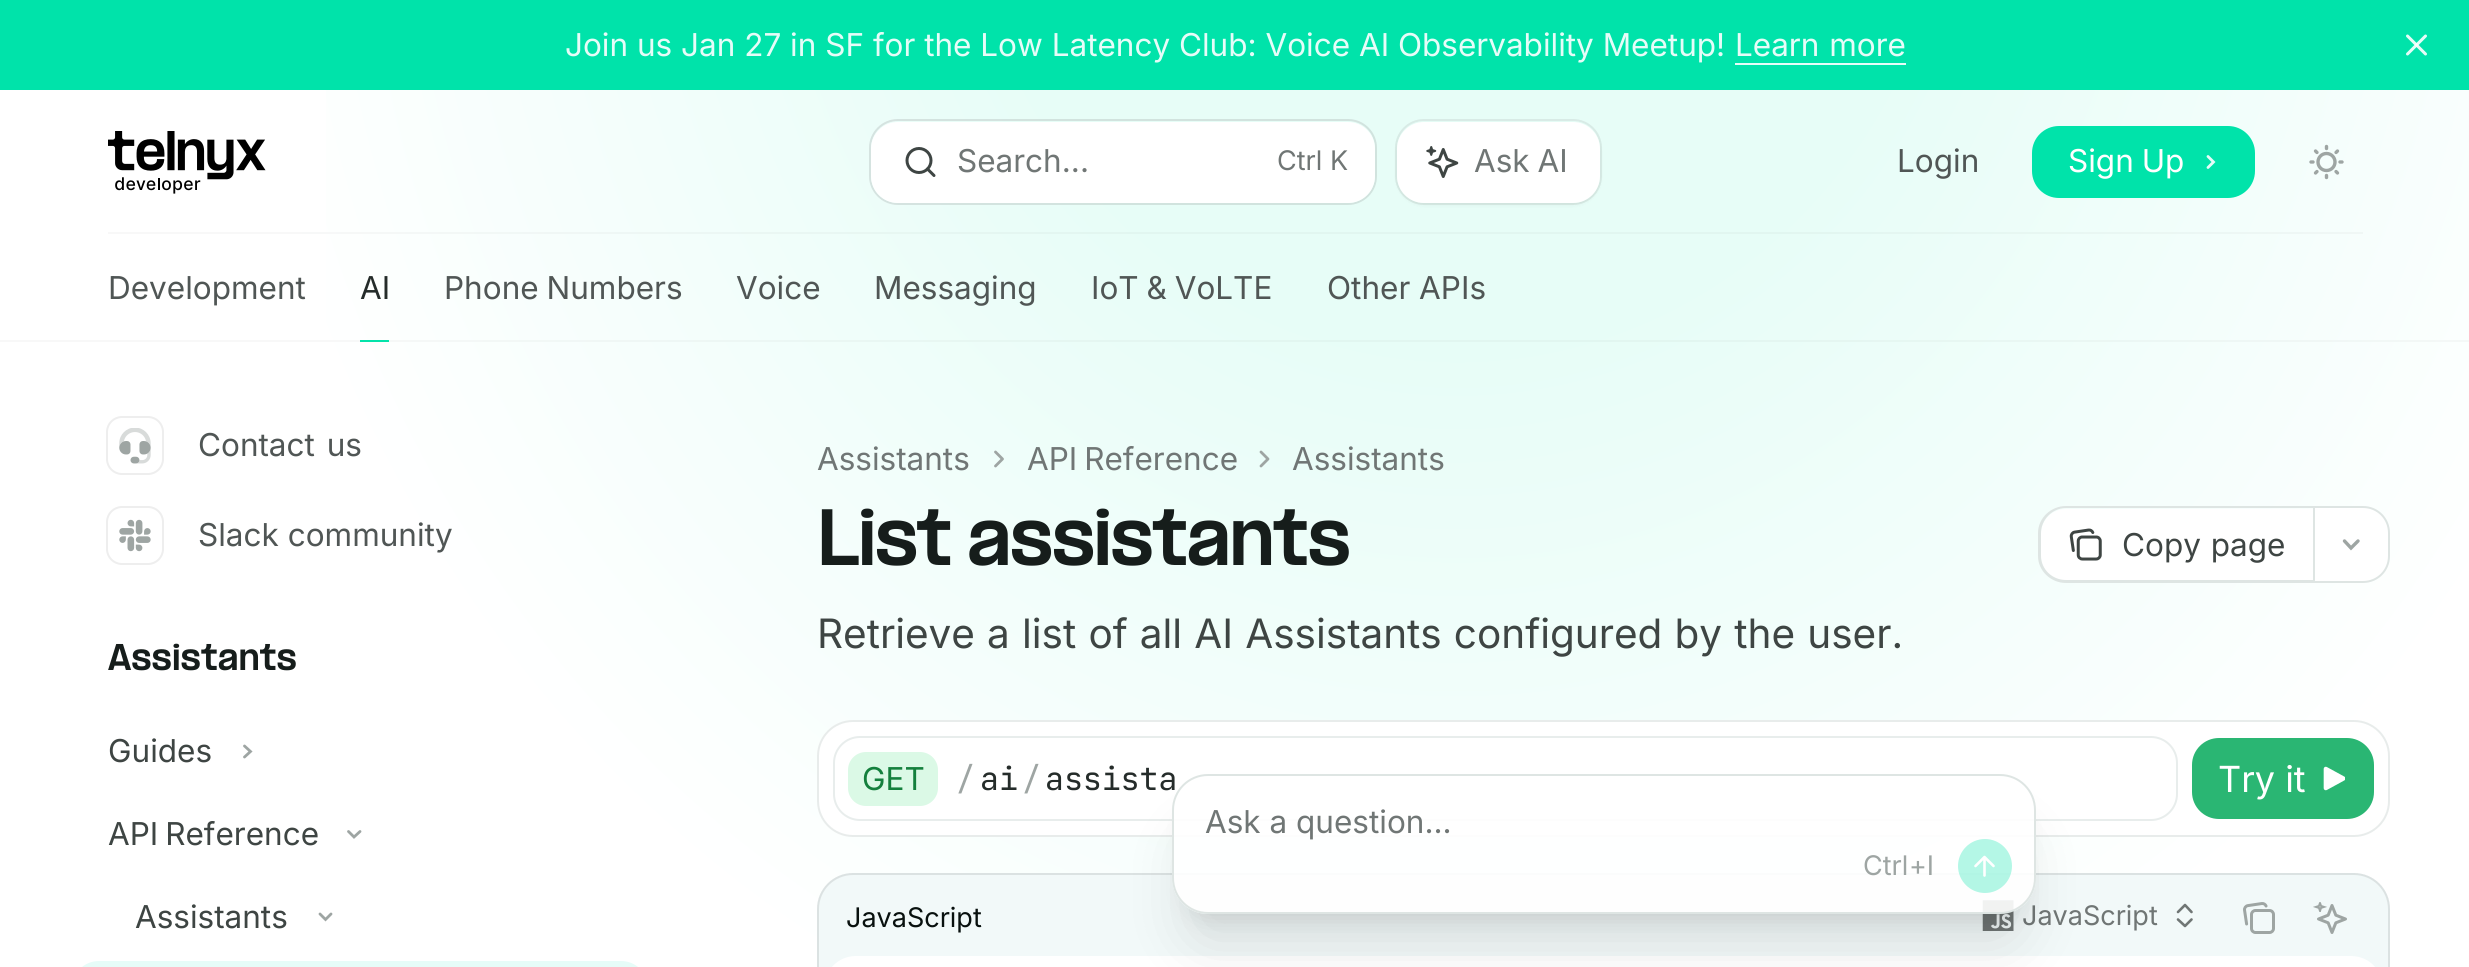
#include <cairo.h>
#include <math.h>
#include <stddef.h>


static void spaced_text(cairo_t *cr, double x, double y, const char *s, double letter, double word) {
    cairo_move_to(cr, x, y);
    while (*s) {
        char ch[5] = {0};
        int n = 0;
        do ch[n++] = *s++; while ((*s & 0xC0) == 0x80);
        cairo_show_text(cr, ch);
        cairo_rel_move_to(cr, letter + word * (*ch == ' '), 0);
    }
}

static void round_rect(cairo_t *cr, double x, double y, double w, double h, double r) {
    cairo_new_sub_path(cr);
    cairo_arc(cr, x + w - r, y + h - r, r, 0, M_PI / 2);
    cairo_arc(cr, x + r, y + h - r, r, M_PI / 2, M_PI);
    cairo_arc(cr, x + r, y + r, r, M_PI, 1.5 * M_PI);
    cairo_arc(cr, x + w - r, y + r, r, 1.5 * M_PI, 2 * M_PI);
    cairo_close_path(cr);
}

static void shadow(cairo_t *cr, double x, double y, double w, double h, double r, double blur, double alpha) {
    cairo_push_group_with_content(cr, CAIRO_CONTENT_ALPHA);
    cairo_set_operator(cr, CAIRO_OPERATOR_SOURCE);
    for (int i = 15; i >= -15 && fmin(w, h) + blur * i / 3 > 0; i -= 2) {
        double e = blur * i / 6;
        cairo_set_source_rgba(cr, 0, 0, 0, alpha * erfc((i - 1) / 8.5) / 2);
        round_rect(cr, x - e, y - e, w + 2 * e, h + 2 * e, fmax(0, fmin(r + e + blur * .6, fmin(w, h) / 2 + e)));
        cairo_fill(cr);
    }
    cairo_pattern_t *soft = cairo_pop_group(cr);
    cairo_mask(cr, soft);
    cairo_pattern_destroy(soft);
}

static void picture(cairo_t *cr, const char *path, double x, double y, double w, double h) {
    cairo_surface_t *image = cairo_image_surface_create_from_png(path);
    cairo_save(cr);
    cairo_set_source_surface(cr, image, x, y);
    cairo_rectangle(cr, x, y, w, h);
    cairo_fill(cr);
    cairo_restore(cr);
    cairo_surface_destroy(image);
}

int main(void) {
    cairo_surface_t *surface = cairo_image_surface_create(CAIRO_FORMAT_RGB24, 2469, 967);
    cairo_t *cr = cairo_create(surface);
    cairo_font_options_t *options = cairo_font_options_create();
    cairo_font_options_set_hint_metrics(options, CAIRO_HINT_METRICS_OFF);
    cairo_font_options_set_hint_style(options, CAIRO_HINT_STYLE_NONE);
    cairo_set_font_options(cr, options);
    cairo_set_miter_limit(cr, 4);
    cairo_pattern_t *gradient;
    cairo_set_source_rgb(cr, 1, 1, 1);
    cairo_paint(cr);
    cairo_set_source_rgb(cr, 0, 0.89, 0.667);
    cairo_rectangle(cr, 0, 0, 2469, 90);
    cairo_fill(cr);
    cairo_select_font_face(cr, "Inter", CAIRO_FONT_SLANT_NORMAL, CAIRO_FONT_WEIGHT_NORMAL);
    cairo_set_font_size(cr, 31.5);
    cairo_set_source_rgb(cr, 0.902, 0.988, 0.969);
    cairo_move_to(cr, 565, 56);
    cairo_show_text(cr, "Join us Jan 27 in SF for the Low Latency Club: Voice AI Observability Meetup!");
    spaced_text(cr, 1735, 56, "Learn more", 0, 1);
    cairo_rectangle(cr, 1735, 63, 171, 2);
    cairo_fill(cr);
    cairo_new_path(cr);
    cairo_move_to(cr, 2425.5, 36);
    cairo_line_to(cr, 2407.5, 54);
    cairo_set_line_width(cr, 3);
    cairo_set_line_cap(cr, CAIRO_LINE_CAP_ROUND);
    cairo_set_line_join(cr, CAIRO_LINE_JOIN_ROUND);
    cairo_stroke(cr);
    cairo_new_path(cr);
    cairo_move_to(cr, 2407.5, 36);
    cairo_line_to(cr, 2425.5, 54);
    cairo_set_source_rgba(cr, 1, 1, 1, 0.9);
    cairo_stroke(cr);
    picture(cr, "img1.png", 108, 131, 158, 63);
    gradient = cairo_pattern_create_radial(0, 0, 0, 0, 0, 1);
    cairo_pattern_set_matrix(gradient, &(cairo_matrix_t){1.0 / 1226, 0, 0, 1.0 / 1314, -1.0 * 1457 / 1226, -1.0 * -166 / 1314});
    cairo_pattern_add_color_stop_rgba(gradient, 0.39, 0.906, 0.992, 0.969, 1);
    cairo_pattern_add_color_stop_rgba(gradient, 1, 1, 1, 1, 1);
    cairo_set_source(cr, gradient);
    cairo_pattern_destroy(gradient);
    cairo_rectangle(cr, 326, 90, 2143, 877);
    cairo_fill(cr);
    round_rect(cr, 870, 120, 506, 84, 28);
    cairo_set_source_rgba(cr, 0.62, 0.647, 0.639, 0.3);
    cairo_set_line_width(cr, 2);
    cairo_set_line_cap(cr, CAIRO_LINE_CAP_BUTT);
    cairo_set_line_join(cr, CAIRO_LINE_JOIN_MITER);
    cairo_stroke(cr);
    cairo_set_source_rgb(cr, 1, 1, 1);
    round_rect(cr, 871, 122, 504, 81, 27);
    cairo_fill(cr);
    cairo_arc(cr, 919, 160.5, 12, 0, 2 * M_PI);
    cairo_set_source_rgb(cr, 0.243, 0.271, 0.263);
    cairo_set_line_width(cr, 3);
    cairo_stroke(cr);
    cairo_new_path(cr);
    cairo_move_to(cr, 934, 175.5);
    cairo_line_to(cr, 927.5, 169);
    cairo_set_line_cap(cr, CAIRO_LINE_CAP_ROUND);
    cairo_set_line_join(cr, CAIRO_LINE_JOIN_ROUND);
    cairo_stroke(cr);
    cairo_set_source_rgb(cr, 0.439, 0.463, 0.459);
    cairo_move_to(cr, 957, 172);
    cairo_show_text(cr, "Search...");
    cairo_set_font_size(cr, 27);
    cairo_move_to(cr, 1277, 170);
    cairo_show_text(cr, "Ctrl");
    cairo_move_to(cr, 1330, 170);
    cairo_show_text(cr, "K");
    cairo_set_source_rgb(cr, 0, 0, 0);
    shadow(cr, 1397, 124, 203, 81, 27, 2, 0.05);
    round_rect(cr, 1396, 120, 205, 84, 28);
    cairo_set_source_rgba(cr, 0.62, 0.647, 0.639, 0.2);
    cairo_set_line_width(cr, 2);
    cairo_set_line_cap(cr, CAIRO_LINE_CAP_BUTT);
    cairo_set_line_join(cr, CAIRO_LINE_JOIN_MITER);
    cairo_stroke(cr);
    cairo_set_source_rgb(cr, 1, 1, 1);
    round_rect(cr, 1397, 122, 203, 81, 27);
    cairo_fill(cr);
    picture(cr, "img2.png", 1426, 146, 33, 32);
    cairo_set_font_size(cr, 31.5);
    cairo_set_source_rgb(cr, 0.439, 0.463, 0.459);
    spaced_text(cr, 1474, 172, "Ask AI", 0, -1);
    cairo_set_source_rgb(cr, 0.314, 0.337, 0.333);
    cairo_move_to(cr, 1897, 172);
    cairo_show_text(cr, "Login");
    cairo_set_source_rgb(cr, 0, 0.89, 0.667);
    round_rect(cr, 2032, 126, 223, 72, 27);
    cairo_fill(cr);
    cairo_set_source_rgb(cr, 1, 1, 1);
    spaced_text(cr, 2068, 172, "Sign Up", 0, -1);
    cairo_new_path(cr);
    cairo_move_to(cr, 2208, 156.5);
    cairo_line_to(cr, 2213.5, 162);
    cairo_line_to(cr, 2208, 167.5);
    cairo_set_source_rgb(cr, 0.902, 0.988, 0.969);
    cairo_set_line_width(cr, 2.8);
    cairo_set_line_cap(cr, CAIRO_LINE_CAP_ROUND);
    cairo_stroke(cr);
    picture(cr, "img3.png", 2309, 144, 35, 36);
    cairo_set_source_rgb(cr, 0.314, 0.337, 0.333);
    cairo_move_to(cr, 108, 299);
    cairo_show_text(cr, "Development");
    cairo_set_source_rgb(cr, 0.145, 0.173, 0.165);
    cairo_move_to(cr, 360, 299);
    cairo_show_text(cr, "AI");
    gradient = cairo_pattern_create_radial(0, 0, 0, 0, 0, 1);
    cairo_pattern_set_matrix(gradient, &(cairo_matrix_t){1.0 / 1226, 0, 0, 1.0 / 1314, -1.0 * 1457 / 1226, -1.0 * -166 / 1314});
    cairo_pattern_add_color_stop_rgba(gradient, 0.39, 0.882, 0.965, 0.941, 1);
    cairo_pattern_add_color_stop_rgba(gradient, 1, 0.973, 0.973, 0.973, 1);
    cairo_set_source(cr, gradient);
    cairo_pattern_destroy(gradient);
    cairo_rectangle(cr, 0, 340, 2469, 2);
    cairo_fill(cr);
    cairo_set_source_rgb(cr, 0.016, 0.89, 0.667);
    cairo_rectangle(cr, 360, 340, 29, 2);
    cairo_fill(cr);
    cairo_set_source_rgb(cr, 0.314, 0.337, 0.333);
    spaced_text(cr, 444, 299, "Phone Numbers", 0, -1);
    cairo_move_to(cr, 736, 299);
    cairo_show_text(cr, "Voice");
    cairo_move_to(cr, 874, 299);
    cairo_show_text(cr, "Messaging");
    spaced_text(cr, 1091, 299, "IoT & VoLTE", 0, -1);
    cairo_move_to(cr, 1327, 299);
    cairo_show_text(cr, "Other APIs");
    round_rect(cr, 107, 417, 56, 57, 15);
    cairo_set_source_rgb(cr, 0.933, 0.933, 0.933);
    cairo_set_line_width(cr, 2);
    cairo_set_line_cap(cr, CAIRO_LINE_CAP_BUTT);
    cairo_stroke(cr);
    picture(cr, "img4.png", 119, 428, 32, 36);
    cairo_set_source_rgb(cr, 0.314, 0.337, 0.333);
    spaced_text(cr, 198, 456, "Contact us", 0, 3);
    round_rect(cr, 107, 507, 56, 57, 15);
    cairo_set_source_rgb(cr, 0.933, 0.933, 0.933);
    cairo_stroke(cr);
    picture(cr, "img5.png", 119, 519, 32, 33);
    cairo_set_source_rgb(cr, 0.314, 0.337, 0.333);
    cairo_move_to(cr, 198, 546);
    cairo_show_text(cr, "Slack community");
    cairo_select_font_face(cr, "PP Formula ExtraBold", CAIRO_FONT_SLANT_NORMAL, CAIRO_FONT_WEIGHT_NORMAL);
    cairo_set_source_rgb(cr, 0.086, 0.114, 0.106);
    cairo_move_to(cr, 108, 670);
    cairo_show_text(cr, "Assistants");
    cairo_select_font_face(cr, "Inter", CAIRO_FONT_SLANT_NORMAL, CAIRO_FONT_WEIGHT_NORMAL);
    cairo_set_source_rgb(cr, 0.243, 0.271, 0.263);
    cairo_move_to(cr, 108, 762);
    cairo_show_text(cr, "Guides");
    cairo_new_path(cr);
    cairo_move_to(cr, 244.5, 746);
    cairo_line_to(cr, 250.5, 751.5);
    cairo_line_to(cr, 244.5, 757);
    cairo_set_source_rgb(cr, 0.62, 0.647, 0.639);
    cairo_set_line_width(cr, 2.8);
    cairo_set_line_cap(cr, CAIRO_LINE_CAP_ROUND);
    cairo_stroke(cr);
    cairo_set_source_rgb(cr, 0.243, 0.271, 0.263);
    spaced_text(cr, 108, 845, "API Reference", 0, -2);
    cairo_new_path(cr);
    cairo_move_to(cr, 360, 831.5);
    cairo_line_to(cr, 354, 837);
    cairo_line_to(cr, 348.5, 831.5);
    cairo_set_source_rgb(cr, 0.62, 0.647, 0.639);
    cairo_stroke(cr);
    cairo_set_source_rgb(cr, 0.243, 0.271, 0.263);
    cairo_move_to(cr, 135, 928);
    cairo_show_text(cr, "Assistants");
    cairo_new_path(cr);
    cairo_move_to(cr, 331, 914);
    cairo_line_to(cr, 325.5, 919.5);
    cairo_line_to(cr, 320, 914);
    cairo_set_source_rgb(cr, 0.62, 0.647, 0.639);
    cairo_stroke(cr);
    cairo_set_source_rgb(cr, 0.902, 0.988, 0.969);
    cairo_new_path(cr);
    cairo_move_to(cr, 99, 961);
    cairo_line_to(cr, 621, 961);
    cairo_curve_to(cr, 636, 961, 648, 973, 648, 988);
    cairo_line_to(cr, 648, 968);
    cairo_line_to(cr, 72, 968);
    cairo_line_to(cr, 72, 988);
    cairo_curve_to(cr, 72, 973, 84, 961, 99, 961);
    cairo_close_path(cr);
    cairo_fill(cr);
    gradient = cairo_pattern_create_radial(0, 0, 0, 0, 0, 1);
    cairo_pattern_set_matrix(gradient, &(cairo_matrix_t){1.0 / 1226, 0, 0, 1.0 / 1314, -1.0 * 1457 / 1226, -1.0 * -166 / 1314});
    cairo_pattern_add_color_stop_rgba(gradient, 0.39, 0.882, 0.965, 0.941, 1);
    cairo_pattern_add_color_stop_rgba(gradient, 1, 0.973, 0.973, 0.973, 1);
    cairo_set_source(cr, gradient);
    cairo_pattern_destroy(gradient);
    cairo_rectangle(cr, 108, 232, 2255, 2);
    cairo_fill(cr);
    cairo_set_source_rgb(cr, 0.439, 0.463, 0.459);
    cairo_move_to(cr, 817, 470);
    cairo_show_text(cr, "Assistants");
    cairo_new_path(cr);
    cairo_move_to(cr, 995.5, 466);
    cairo_line_to(cr, 1002.5, 459);
    cairo_line_to(cr, 995.5, 452);
    cairo_set_source_rgb(cr, 0.62, 0.647, 0.639);
    cairo_set_line_join(cr, CAIRO_LINE_JOIN_ROUND);
    cairo_stroke(cr);
    cairo_set_source_rgb(cr, 0.439, 0.463, 0.459);
    spaced_text(cr, 1027, 470, "API Reference", 0, -2);
    cairo_new_path(cr);
    cairo_move_to(cr, 1261, 466);
    cairo_line_to(cr, 1268, 459);
    cairo_line_to(cr, 1261, 452);
    cairo_set_source_rgb(cr, 0.62, 0.647, 0.639);
    cairo_stroke(cr);
    cairo_set_source_rgb(cr, 0.439, 0.463, 0.459);
    cairo_move_to(cr, 1292, 470);
    cairo_show_text(cr, "Assistants");
    cairo_select_font_face(cr, "PP Formula ExtraBold", CAIRO_FONT_SLANT_NORMAL, CAIRO_FONT_WEIGHT_NORMAL);
    cairo_set_font_size(cr, 67.5);
    cairo_set_source_rgb(cr, 0.086, 0.114, 0.106);
    spaced_text(cr, 817, 565, "List assistants", -1.75, 0);
    cairo_set_source_rgb(cr, 1, 1, 1);
    cairo_new_path(cr);
    cairo_move_to(cr, 2066, 509);
    cairo_line_to(cr, 2313, 509);
    cairo_line_to(cr, 2313, 581);
    cairo_line_to(cr, 2066, 581);
    cairo_curve_to(cr, 2052, 581, 2041, 570, 2041, 556);
    cairo_line_to(cr, 2041, 534);
    cairo_curve_to(cr, 2041, 520, 2052, 509, 2066, 509);
    cairo_close_path(cr);
    cairo_fill(cr);
    cairo_set_source_rgb(cr, 0.871, 0.898, 0.89);
    cairo_set_fill_rule(cr, CAIRO_FILL_RULE_EVEN_ODD);
    cairo_new_path(cr);
    cairo_move_to(cr, 2066, 506);
    cairo_line_to(cr, 2313, 506);
    cairo_line_to(cr, 2313, 583);
    cairo_line_to(cr, 2066, 583);
    cairo_curve_to(cr, 2051, 583, 2038, 571, 2038, 556);
    cairo_line_to(cr, 2038, 533);
    cairo_curve_to(cr, 2038, 518, 2051, 506, 2066, 506);
    cairo_close_path(cr);
    cairo_move_to(cr, 2066, 508);
    cairo_line_to(cr, 2313, 508);
    cairo_line_to(cr, 2313, 580);
    cairo_line_to(cr, 2066, 580);
    cairo_curve_to(cr, 2052, 580, 2041, 569, 2041, 556);
    cairo_line_to(cr, 2041, 533);
    cairo_curve_to(cr, 2041, 520, 2052, 508, 2066, 508);
    cairo_close_path(cr);
    cairo_fill(cr);
    picture(cr, "img6.png", 2069, 528, 33, 33);
    cairo_select_font_face(cr, "Inter", CAIRO_FONT_SLANT_NORMAL, CAIRO_FONT_WEIGHT_NORMAL);
    cairo_set_font_size(cr, 31.5);
    cairo_set_source_rgb(cr, 0.243, 0.271, 0.263);
    spaced_text(cr, 2122, 556, "Copy page", 0, 1);
    cairo_set_source_rgb(cr, 1, 1, 1);
    cairo_new_path(cr);
    cairo_move_to(cr, 2314, 507);
    cairo_line_to(cr, 2363, 507);
    cairo_curve_to(cr, 2377.5, 507, 2389, 518.5, 2389, 533);
    cairo_line_to(cr, 2389, 556);
    cairo_curve_to(cr, 2389, 570.5, 2377.5, 582, 2363, 582);
    cairo_line_to(cr, 2314, 582);
    cairo_close_path(cr);
    cairo_fill_preserve(cr);
    cairo_set_source_rgb(cr, 0.871, 0.898, 0.89);
    cairo_set_line_width(cr, 2);
    cairo_set_line_cap(cr, CAIRO_LINE_CAP_BUTT);
    cairo_set_line_join(cr, CAIRO_LINE_JOIN_MITER);
    cairo_stroke(cr);
    cairo_new_path(cr);
    cairo_move_to(cr, 2358, 541);
    cairo_line_to(cr, 2351, 548);
    cairo_line_to(cr, 2344.5, 541);
    cairo_set_source_rgb(cr, 0.62, 0.647, 0.639);
    cairo_set_line_width(cr, 3.4);
    cairo_set_line_cap(cr, CAIRO_LINE_CAP_ROUND);
    cairo_stroke(cr);
    cairo_set_font_size(cr, 40.5);
    cairo_set_source_rgb(cr, 0.243, 0.271, 0.263);
    spaced_text(cr, 817, 648, "Retrieve a list of all AI Assistants configured by the user.", 0, 0.75);
    cairo_set_source_rgb(cr, 1, 1, 1);
    round_rect(cr, 817, 720, 1573, 117, 36);
    cairo_fill(cr);
    round_rect(cr, 818, 721, 1571, 115, 35);
    cairo_set_source_rgba(cr, 0.871, 0.898, 0.89, 0.7);
    cairo_set_line_width(cr, 2);
    cairo_set_line_cap(cr, CAIRO_LINE_CAP_BUTT);
    cairo_stroke(cr);
    round_rect(cr, 834, 737, 1343, 83, 26);
    cairo_set_source_rgb(cr, 0.91, 0.929, 0.922);
    cairo_stroke(cr);
    cairo_set_source_rgb(cr, 0.859, 0.973, 0.902);
    round_rect(cr, 848, 752, 90, 54, 18);
    cairo_fill(cr);
    cairo_set_font_size(cr, 31.5);
    cairo_set_source_rgb(cr, 0.082, 0.502, 0.239);
    cairo_move_to(cr, 862, 790);
    cairo_show_text(cr, "GET");
    cairo_select_font_face(cr, "JetBrains Mono", CAIRO_FONT_SLANT_NORMAL, CAIRO_FONT_WEIGHT_NORMAL);
    cairo_set_source_rgb(cr, 0.62, 0.647, 0.639);
    cairo_move_to(cr, 956, 790);
    cairo_show_text(cr, "/");
    cairo_set_source_rgb(cr, 0.145, 0.173, 0.165);
    cairo_move_to(cr, 980, 790);
    cairo_show_text(cr, "ai");
    cairo_set_source_rgb(cr, 0.62, 0.647, 0.639);
    cairo_move_to(cr, 1022, 790);
    cairo_show_text(cr, "/");
    cairo_set_source_rgb(cr, 0.145, 0.173, 0.165);
    cairo_move_to(cr, 1045, 790);
    cairo_show_text(cr, "assista");
    cairo_set_source_rgb(cr, 0.165, 0.714, 0.451);
    round_rect(cr, 2192, 738, 182, 81, 27);
    cairo_fill(cr);
    cairo_select_font_face(cr, "Inter", CAIRO_FONT_SLANT_NORMAL, CAIRO_FONT_WEIGHT_NORMAL);
    cairo_set_font_size(cr, 36);
    cairo_set_source_rgb(cr, 1, 1, 1);
    cairo_move_to(cr, 2218, 792);
    cairo_show_text(cr, "Try it");
    picture(cr, "img7.png", 2323, 766, 22, 25);
    cairo_set_source_rgb(cr, 0.949, 0.976, 0.973);
    round_rect(cr, 817, 873, 1573, 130, 36);
    cairo_fill(cr);
    round_rect(cr, 818, 874, 1571, 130, 35);
    cairo_set_source_rgba(cr, 0.039, 0.067, 0.059, 0.1);
    cairo_stroke(cr);
    cairo_set_font_size(cr, 27);
    cairo_set_source_rgb(cr, 0.039, 0.067, 0.059);
    cairo_move_to(cr, 846, 927);
    cairo_show_text(cr, "JavaScript");
    picture(cr, "img8.png", 1982, 900, 32, 31);
    cairo_set_source_rgb(cr, 0.439, 0.463, 0.459);
    cairo_move_to(cr, 2022, 925);
    cairo_show_text(cr, "JavaScript");
    cairo_new_path(cr);
    cairo_move_to(cr, 2178, 919.5);
    cairo_line_to(cr, 2185, 926);
    cairo_line_to(cr, 2191.5, 919.5);
    cairo_move_to(cr, 2178, 912);
    cairo_line_to(cr, 2185, 905);
    cairo_line_to(cr, 2191.5, 912);
    cairo_set_line_width(cr, 2.6);
    cairo_set_line_cap(cr, CAIRO_LINE_CAP_ROUND);
    cairo_set_line_join(cr, CAIRO_LINE_JOIN_ROUND);
    cairo_stroke(cr);
    picture(cr, "img9.png", 2243, 902, 32, 32);
    picture(cr, "img10.png", 2313, 902, 34, 32);
    cairo_set_source_rgb(cr, 1, 1, 1);
    round_rect(cr, 824, 956, 1559, 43, 32);
    cairo_fill(cr);
    cairo_save(cr);
    cairo_new_path(cr);
    cairo_move_to(cr, 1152, 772);
    cairo_line_to(cr, 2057, 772);
    cairo_line_to(cr, 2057, 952);
    cairo_line_to(cr, 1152, 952);
    cairo_close_path(cr);
    cairo_move_to(cr, 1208, 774);
    cairo_line_to(cr, 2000, 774);
    cairo_curve_to(cr, 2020, 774, 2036, 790, 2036, 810);
    cairo_line_to(cr, 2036, 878);
    cairo_curve_to(cr, 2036, 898, 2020, 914, 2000, 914);
    cairo_line_to(cr, 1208, 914);
    cairo_curve_to(cr, 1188, 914, 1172, 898, 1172, 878);
    cairo_line_to(cr, 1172, 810);
    cairo_curve_to(cr, 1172, 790, 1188, 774, 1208, 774);
    cairo_close_path(cr);
    cairo_clip(cr);
    cairo_set_source_rgb(cr, 0, 0, 0);
    shadow(cr, 1186, 806, 837, 112, 23, 11, 0.1);
    cairo_restore(cr);
    cairo_save(cr);
    cairo_new_path(cr);
    cairo_move_to(cr, 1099, 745);
    cairo_line_to(cr, 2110, 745);
    cairo_line_to(cr, 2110, 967);
    cairo_line_to(cr, 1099, 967);
    cairo_close_path(cr);
    cairo_move_to(cr, 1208, 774);
    cairo_line_to(cr, 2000, 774);
    cairo_curve_to(cr, 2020, 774, 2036, 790, 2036, 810);
    cairo_line_to(cr, 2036, 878);
    cairo_curve_to(cr, 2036, 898, 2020, 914, 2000, 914);
    cairo_line_to(cr, 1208, 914);
    cairo_curve_to(cr, 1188, 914, 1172, 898, 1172, 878);
    cairo_line_to(cr, 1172, 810);
    cairo_curve_to(cr, 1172, 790, 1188, 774, 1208, 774);
    cairo_close_path(cr);
    cairo_clip(cr);
    cairo_set_source_rgb(cr, 0, 0, 0);
    shadow(cr, 1184, 830, 841, 117, 25, 28, 0.1);
    cairo_restore(cr);
    cairo_set_source_rgba(cr, 1, 1, 1, 0.9);
    round_rect(cr, 1173, 775, 862, 138, 35);
    cairo_fill_preserve(cr);
    cairo_set_source_rgb(cr, 0.871, 0.898, 0.89);
    cairo_set_line_width(cr, 2);
    cairo_set_line_cap(cr, CAIRO_LINE_CAP_BUTT);
    cairo_set_line_join(cr, CAIRO_LINE_JOIN_MITER);
    cairo_stroke(cr);
    cairo_set_font_size(cr, 31.5);
    cairo_set_source_rgb(cr, 0.439, 0.463, 0.459);
    cairo_move_to(cr, 1205, 833);
    cairo_show_text(cr, "Ask a question...");
    cairo_set_font_size(cr, 27);
    cairo_set_source_rgb(cr, 0.62, 0.647, 0.639);
    cairo_move_to(cr, 1863, 875);
    cairo_show_text(cr, "Ctrl");
    cairo_move_to(cr, 1909, 875);
    cairo_show_text(cr, "+I");
    cairo_set_source_rgba(cr, 0.016, 0.89, 0.667, 0.3);
    cairo_new_path(cr);
    cairo_arc(cr, 1985, 866, 27, 0, 2 * M_PI);
    cairo_fill(cr);
    cairo_new_path(cr);
    cairo_move_to(cr, 1975.5, 866);
    cairo_line_to(cr, 1984.5, 857);
    cairo_line_to(cr, 1993.5, 866);
    cairo_move_to(cr, 1984.5, 875.5);
    cairo_line_to(cr, 1984.5, 857);
    cairo_set_source_rgb(cr, 1, 1, 1);
    cairo_set_line_width(cr, 2.6);
    cairo_set_line_cap(cr, CAIRO_LINE_CAP_ROUND);
    cairo_set_line_join(cr, CAIRO_LINE_JOIN_ROUND);
    cairo_stroke(cr);
    cairo_surface_write_to_png(surface, "page.png");
    cairo_font_options_destroy(options);
    cairo_destroy(cr);
    cairo_surface_destroy(surface);
    return 0;
}
